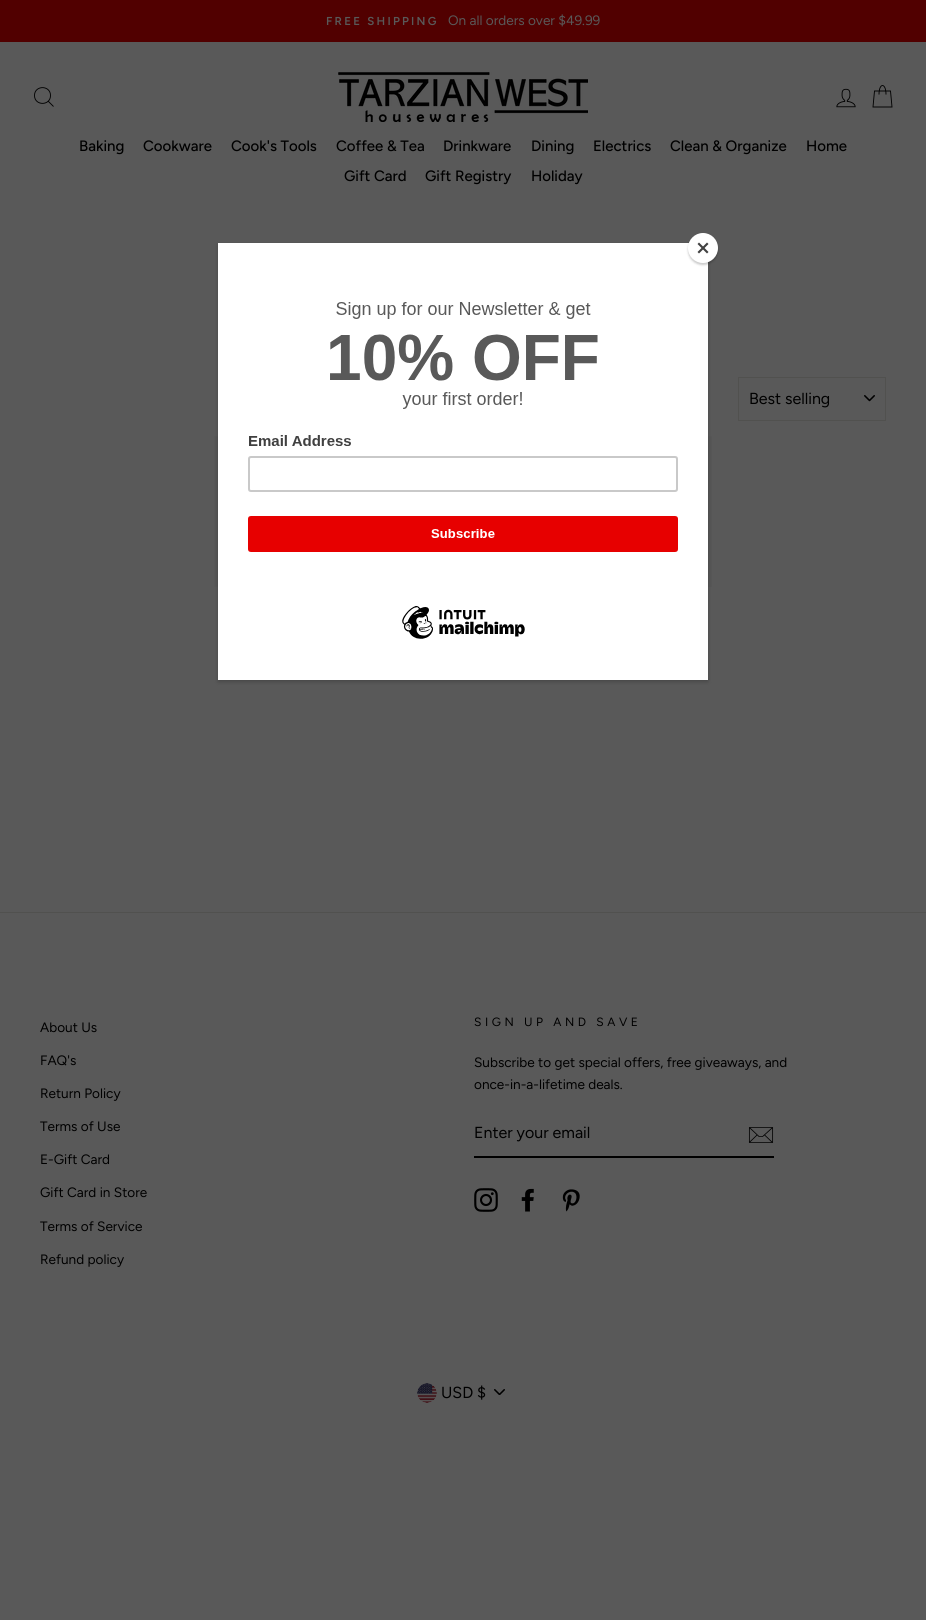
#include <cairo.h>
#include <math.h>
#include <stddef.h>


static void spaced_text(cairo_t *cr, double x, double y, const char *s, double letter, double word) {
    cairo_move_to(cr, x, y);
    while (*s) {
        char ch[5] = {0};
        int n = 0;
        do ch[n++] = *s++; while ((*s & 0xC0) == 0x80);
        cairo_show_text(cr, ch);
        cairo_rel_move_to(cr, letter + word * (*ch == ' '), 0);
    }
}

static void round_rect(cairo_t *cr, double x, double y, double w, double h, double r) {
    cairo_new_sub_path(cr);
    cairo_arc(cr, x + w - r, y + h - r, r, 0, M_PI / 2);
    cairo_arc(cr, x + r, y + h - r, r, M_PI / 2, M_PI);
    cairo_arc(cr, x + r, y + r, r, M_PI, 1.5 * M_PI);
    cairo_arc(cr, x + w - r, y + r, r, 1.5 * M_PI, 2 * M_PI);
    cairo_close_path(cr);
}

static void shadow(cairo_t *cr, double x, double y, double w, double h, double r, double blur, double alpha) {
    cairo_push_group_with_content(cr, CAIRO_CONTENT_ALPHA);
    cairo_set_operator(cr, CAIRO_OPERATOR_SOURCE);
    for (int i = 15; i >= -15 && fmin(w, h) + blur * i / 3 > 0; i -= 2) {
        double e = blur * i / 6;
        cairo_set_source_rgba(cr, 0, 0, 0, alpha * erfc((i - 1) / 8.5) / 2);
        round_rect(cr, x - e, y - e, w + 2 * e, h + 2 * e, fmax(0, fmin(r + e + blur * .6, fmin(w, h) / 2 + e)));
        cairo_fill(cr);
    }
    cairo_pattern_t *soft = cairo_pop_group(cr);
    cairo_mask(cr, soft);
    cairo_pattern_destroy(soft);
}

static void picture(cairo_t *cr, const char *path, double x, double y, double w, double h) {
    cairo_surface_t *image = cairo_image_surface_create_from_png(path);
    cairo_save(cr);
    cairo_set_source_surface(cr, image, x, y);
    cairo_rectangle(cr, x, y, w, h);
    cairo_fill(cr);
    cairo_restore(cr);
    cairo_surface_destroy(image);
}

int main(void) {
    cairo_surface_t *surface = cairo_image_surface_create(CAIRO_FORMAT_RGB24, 926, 1620);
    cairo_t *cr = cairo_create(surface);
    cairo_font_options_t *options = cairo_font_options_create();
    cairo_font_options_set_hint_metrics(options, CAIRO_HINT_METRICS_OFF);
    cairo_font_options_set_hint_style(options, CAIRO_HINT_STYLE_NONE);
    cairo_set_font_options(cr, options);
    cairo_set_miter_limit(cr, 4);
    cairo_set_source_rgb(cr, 0.349, 0.349, 0.349);
    cairo_paint(cr);
    cairo_set_source_rgb(cr, 0.318, 0, 0);
    cairo_rectangle(cr, 0, 0, 926, 42);
    cairo_fill(cr);
    cairo_select_font_face(cr, "Figtree SemiBold", CAIRO_FONT_SLANT_NORMAL, CAIRO_FONT_WEIGHT_NORMAL);
    cairo_set_font_size(cr, 11.5);
    cairo_set_source_rgb(cr, 0.349, 0.349, 0.349);
    spaced_text(cr, 326, 25, "FREE SHIPPING", 2.25, 0);
    cairo_select_font_face(cr, "Figtree", CAIRO_FONT_SLANT_NORMAL, CAIRO_FONT_WEIGHT_NORMAL);
    cairo_set_font_size(cr, 13.6);
    cairo_move_to(cr, 448, 25);
    cairo_show_text(cr, "On all orders over $49.99");
    cairo_new_path(cr);
    cairo_move_to(cr, 50.5, 95.5);
    cairo_curve_to(cr, 50.5, 106, 34.5, 106, 34.5, 95.5);
    cairo_curve_to(cr, 34.5, 85, 50.5, 85, 50.5, 95.5);
    cairo_close_path(cr);
    cairo_move_to(cr, 53.5, 106.5);
    cairo_line_to(cr, 48.5, 101.5);
    cairo_set_source_rgb(cr, 0, 0, 0);
    cairo_set_line_width(cr, 0.9);
    cairo_stroke(cr);
    picture(cr, "img1.png", 338, 72, 250, 50);
    picture(cr, "img2.png", 836, 88, 20, 20);
    cairo_new_path(cr);
    cairo_move_to(cr, 879, 94.5);
    cairo_curve_to(cr, 879, 82.5, 886, 82.5, 886, 94.5);
    cairo_move_to(cr, 874.5, 91);
    cairo_line_to(cr, 890.5, 91);
    cairo_line_to(cr, 892, 107);
    cairo_line_to(cr, 873, 107);
    cairo_close_path(cr);
    cairo_stroke(cr);
    cairo_select_font_face(cr, "Figtree Medium", CAIRO_FONT_SLANT_NORMAL, CAIRO_FONT_WEIGHT_NORMAL);
    cairo_set_font_size(cr, 15);
    cairo_move_to(cr, 79, 151);
    cairo_show_text(cr, "Baking");
    cairo_move_to(cr, 143, 151);
    cairo_show_text(cr, "Cookware");
    cairo_move_to(cr, 231, 151);
    cairo_show_text(cr, "Cook's Tools");
    cairo_move_to(cr, 336, 151);
    cairo_show_text(cr, "Coffee & Tea");
    cairo_move_to(cr, 443, 151);
    cairo_show_text(cr, "Drinkware");
    cairo_move_to(cr, 531, 151);
    cairo_show_text(cr, "Dining");
    cairo_move_to(cr, 593, 151);
    cairo_show_text(cr, "Electrics");
    cairo_move_to(cr, 670, 151);
    cairo_show_text(cr, "Clean & Organize");
    cairo_move_to(cr, 806, 151);
    cairo_show_text(cr, "Home");
    cairo_move_to(cr, 344, 181);
    cairo_show_text(cr, "Gift Card");
    cairo_move_to(cr, 425, 181);
    cairo_show_text(cr, "Gift Registry");
    cairo_move_to(cr, 531, 181);
    cairo_show_text(cr, "Holiday");
    picture(cr, "img3.png", 864, 395, 11, 7);
    cairo_rectangle(cr, 738.5, 377.5, 147, 43);
    cairo_set_source_rgb(cr, 0.318, 0.318, 0.31);
    cairo_set_line_width(cr, 1);
    cairo_stroke(cr);
    cairo_select_font_face(cr, "Figtree", CAIRO_FONT_SLANT_NORMAL, CAIRO_FONT_WEIGHT_NORMAL);
    cairo_set_font_size(cr, 16);
    cairo_set_source_rgb(cr, 0, 0, 0);
    cairo_move_to(cr, 749, 404);
    cairo_show_text(cr, "Best selling");
    picture(cr, "img4.png", 214, 436, 4, 151);
    picture(cr, "img5.png", 708, 436, 4, 151);
    cairo_set_source_rgb(cr, 0.318, 0.318, 0.31);
    cairo_rectangle(cr, 0, 912, 926, 1);
    cairo_fill(cr);
    cairo_set_font_size(cr, 13.6);
    cairo_set_source_rgb(cr, 0, 0, 0);
    cairo_move_to(cr, 40, 1032);
    cairo_show_text(cr, "About Us");
    cairo_move_to(cr, 40, 1065);
    cairo_show_text(cr, "FAQ's");
    cairo_move_to(cr, 40, 1098);
    cairo_show_text(cr, "Return Policy");
    cairo_move_to(cr, 40, 1131);
    cairo_show_text(cr, "Terms of Use");
    cairo_move_to(cr, 40, 1164);
    cairo_show_text(cr, "E-Gift Card");
    cairo_move_to(cr, 40, 1197);
    cairo_show_text(cr, "Gift Card in Store");
    cairo_move_to(cr, 40, 1231);
    cairo_show_text(cr, "Terms of Service");
    cairo_move_to(cr, 40, 1264);
    cairo_show_text(cr, "Refund policy");
    cairo_set_font_size(cr, 12);
    spaced_text(cr, 474, 1026, "SIGN UP AND SAVE", 3.6, 0);
    cairo_set_font_size(cr, 13.6);
    cairo_move_to(cr, 474, 1067);
    cairo_show_text(cr, "Subscribe to get special offers, free giveaways, and");
    cairo_move_to(cr, 474, 1089);
    cairo_show_text(cr, "once-in-a-lifetime deals.");
    cairo_rectangle(cr, 474, 1156, 300, 2);
    cairo_fill(cr);
    cairo_set_font_size(cr, 16);
    cairo_move_to(cr, 474, 1138);
    cairo_show_text(cr, "Enter your email");
    picture(cr, "img6.png", 748, 1127, 26, 16);
    picture(cr, "img7.png", 474, 1188, 24, 24);
    picture(cr, "img8.png", 521, 1188, 13, 24);
    picture(cr, "img9.png", 562, 1189, 18, 23);
    picture(cr, "img10.png", 494, 1389, 11, 6);
    picture(cr, "img11.png", 417, 1383, 20, 20);
    cairo_move_to(cr, 441, 1398);
    cairo_show_text(cr, "USD $");
    cairo_set_source_rgb(cr, 0, 0, 0);
    shadow(cr, 218, 245, 490, 437, 0, 2, 0.2);
    picture(cr, "img12.png", 218, 243, 490, 437);
    shadow(cr, 688, 235, 30, 30, 15, 1, 0.2);
    cairo_set_source_rgb(cr, 1, 1, 1);
    cairo_arc(cr, 703, 248, 15, 0, 2 * M_PI);
    cairo_fill(cr);
    cairo_set_source_rgb(cr, 0.255, 0.255, 0.255);
    cairo_new_path(cr);
    cairo_move_to(cr, 707, 242.5);
    cairo_line_to(cr, 708.5, 244);
    cairo_line_to(cr, 699, 253.5);
    cairo_line_to(cr, 697.5, 252);
    cairo_close_path(cr);
    cairo_fill(cr);
    cairo_new_path(cr);
    cairo_move_to(cr, 697.5, 244);
    cairo_line_to(cr, 699, 242.5);
    cairo_line_to(cr, 708.5, 252);
    cairo_line_to(cr, 707, 253.5);
    cairo_close_path(cr);
    cairo_fill(cr);
    cairo_surface_write_to_png(surface, "page.png");
    cairo_font_options_destroy(options);
    cairo_destroy(cr);
    cairo_surface_destroy(surface);
    return 0;
}
